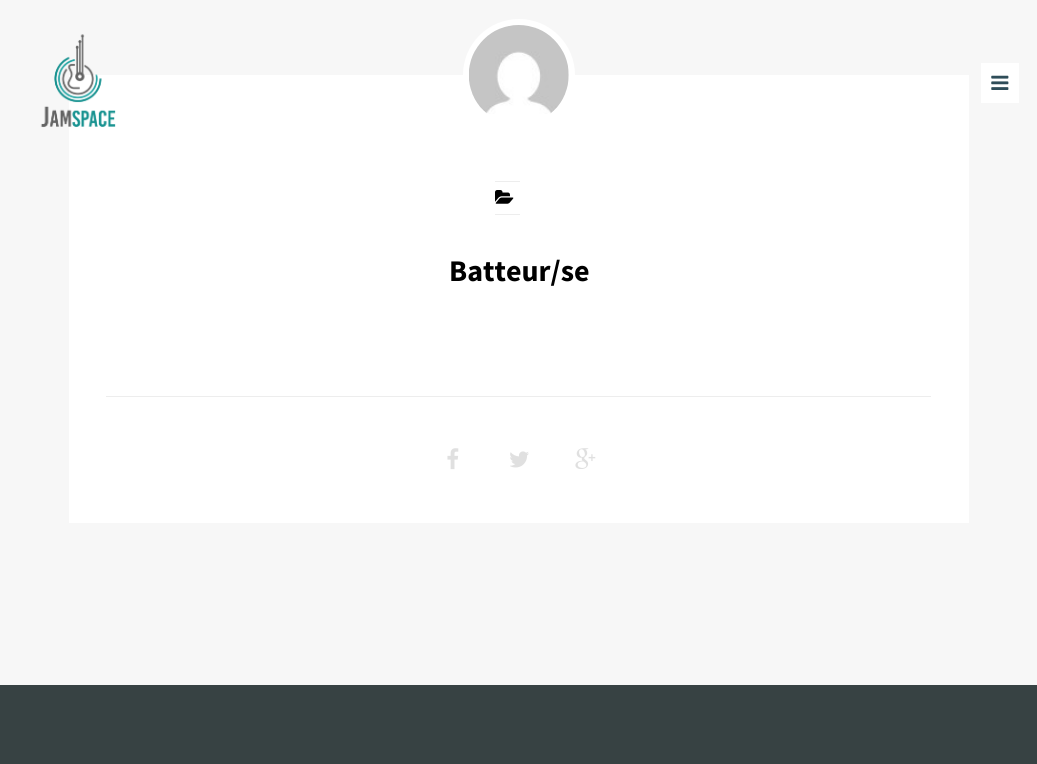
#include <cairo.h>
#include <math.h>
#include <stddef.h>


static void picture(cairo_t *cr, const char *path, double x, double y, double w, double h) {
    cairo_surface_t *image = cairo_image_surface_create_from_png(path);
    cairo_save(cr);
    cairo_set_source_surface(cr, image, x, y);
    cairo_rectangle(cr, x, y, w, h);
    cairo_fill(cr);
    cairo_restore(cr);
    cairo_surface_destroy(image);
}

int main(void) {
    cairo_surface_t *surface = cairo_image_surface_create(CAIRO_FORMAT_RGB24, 1037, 764);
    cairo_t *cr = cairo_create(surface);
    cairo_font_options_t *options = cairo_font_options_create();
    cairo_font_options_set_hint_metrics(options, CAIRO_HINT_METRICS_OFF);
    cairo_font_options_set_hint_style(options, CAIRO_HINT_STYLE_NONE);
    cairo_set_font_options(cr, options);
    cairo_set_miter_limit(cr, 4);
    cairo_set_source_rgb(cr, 0.965, 0.965, 0.965);
    cairo_paint(cr);
    cairo_set_source_rgb(cr, 1, 1, 1);
    cairo_rectangle(cr, 69, 75, 900, 448);
    cairo_fill(cr);
    picture(cr, "img1.png", 40, 34, 76, 94);
    cairo_rectangle(cr, 981, 63, 38, 40);
    cairo_fill(cr);
    picture(cr, "img2.png", 991, 75, 18, 15);
    cairo_arc(cr, 519, 75, 56, 0, 2 * M_PI);
    cairo_fill(cr);
    picture(cr, "img3.png", 469, 25, 100, 89);
    cairo_set_source_rgb(cr, 0.929, 0.929, 0.929);
    cairo_rectangle(cr, 495, 181, 25, 1);
    cairo_fill(cr);
    cairo_rectangle(cr, 495, 214, 25, 1);
    cairo_fill(cr);
    picture(cr, "img4.png", 495, 190, 19, 14);
    cairo_select_font_face(cr, "Source Sans Pro", CAIRO_FONT_SLANT_NORMAL, CAIRO_FONT_WEIGHT_BOLD);
    cairo_set_font_size(cr, 30);
    cairo_set_source_rgb(cr, 0, 0, 0);
    cairo_move_to(cr, 449, 281);
    cairo_show_text(cr, "Batteur/se");
    cairo_set_source_rgb(cr, 0.929, 0.929, 0.929);
    cairo_rectangle(cr, 106, 396, 825, 1);
    cairo_fill(cr);
    picture(cr, "img5.png", 447, 448, 12, 22);
    picture(cr, "img6.png", 510, 451, 19, 17);
    picture(cr, "img7.png", 575, 448, 21, 21);
    cairo_set_source_rgb(cr, 0.216, 0.259, 0.263);
    cairo_rectangle(cr, 0, 685, 1037, 79);
    cairo_fill(cr);
    cairo_surface_write_to_png(surface, "page.png");
    cairo_font_options_destroy(options);
    cairo_destroy(cr);
    cairo_surface_destroy(surface);
    return 0;
}
